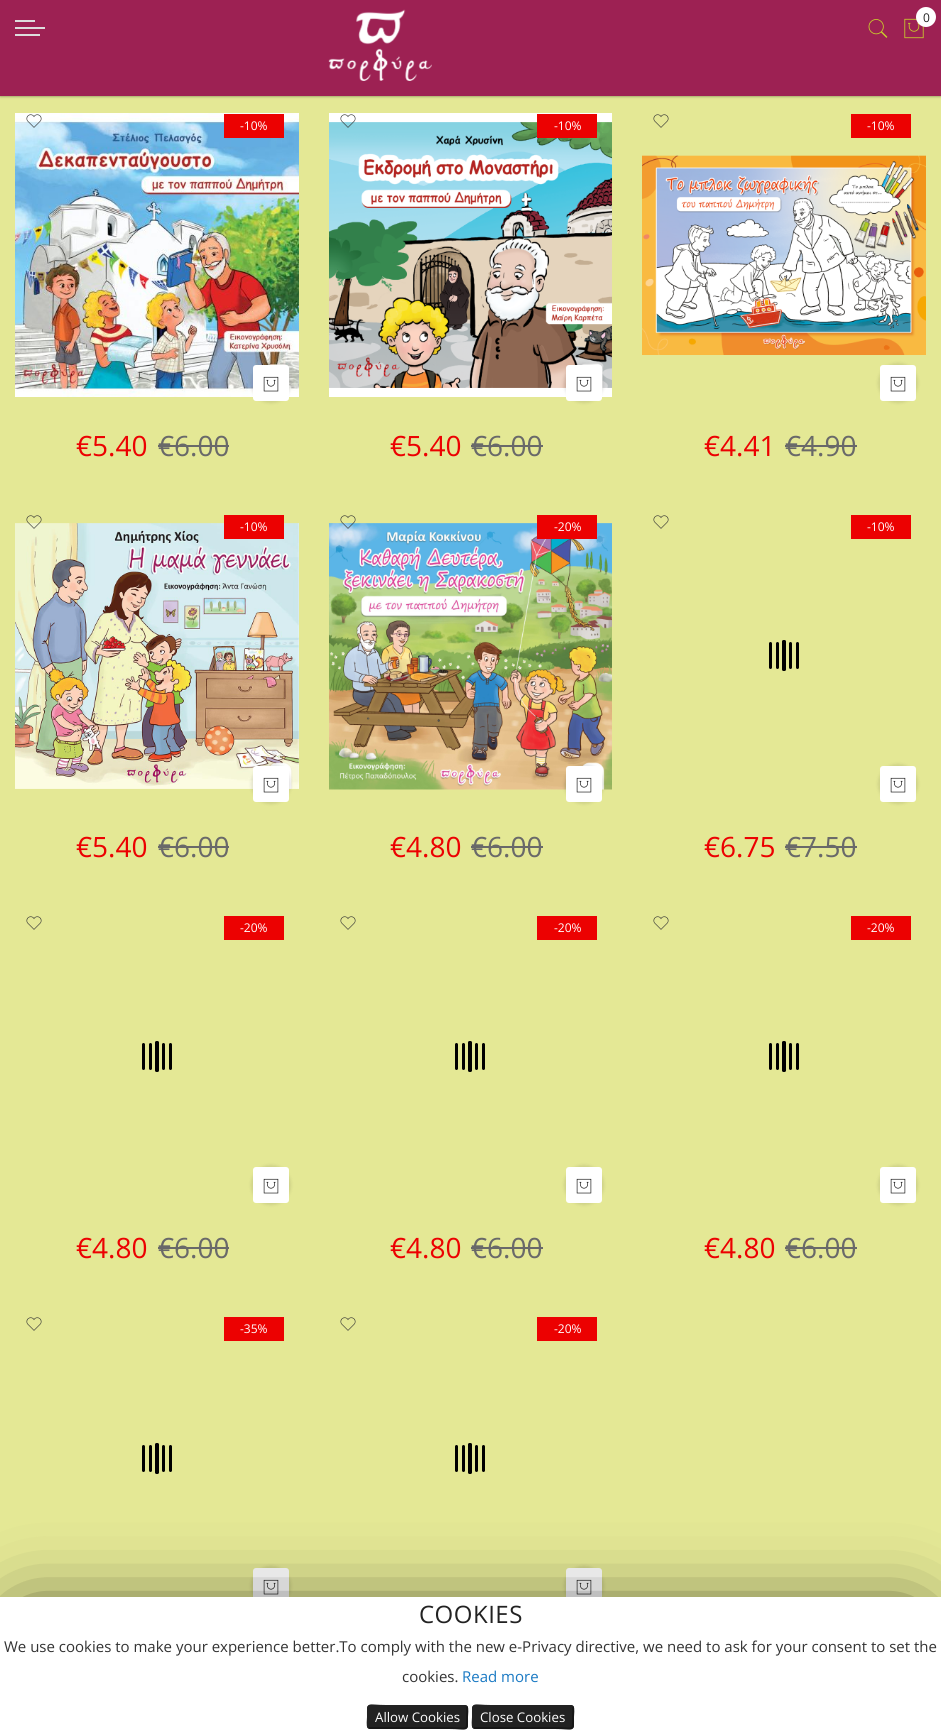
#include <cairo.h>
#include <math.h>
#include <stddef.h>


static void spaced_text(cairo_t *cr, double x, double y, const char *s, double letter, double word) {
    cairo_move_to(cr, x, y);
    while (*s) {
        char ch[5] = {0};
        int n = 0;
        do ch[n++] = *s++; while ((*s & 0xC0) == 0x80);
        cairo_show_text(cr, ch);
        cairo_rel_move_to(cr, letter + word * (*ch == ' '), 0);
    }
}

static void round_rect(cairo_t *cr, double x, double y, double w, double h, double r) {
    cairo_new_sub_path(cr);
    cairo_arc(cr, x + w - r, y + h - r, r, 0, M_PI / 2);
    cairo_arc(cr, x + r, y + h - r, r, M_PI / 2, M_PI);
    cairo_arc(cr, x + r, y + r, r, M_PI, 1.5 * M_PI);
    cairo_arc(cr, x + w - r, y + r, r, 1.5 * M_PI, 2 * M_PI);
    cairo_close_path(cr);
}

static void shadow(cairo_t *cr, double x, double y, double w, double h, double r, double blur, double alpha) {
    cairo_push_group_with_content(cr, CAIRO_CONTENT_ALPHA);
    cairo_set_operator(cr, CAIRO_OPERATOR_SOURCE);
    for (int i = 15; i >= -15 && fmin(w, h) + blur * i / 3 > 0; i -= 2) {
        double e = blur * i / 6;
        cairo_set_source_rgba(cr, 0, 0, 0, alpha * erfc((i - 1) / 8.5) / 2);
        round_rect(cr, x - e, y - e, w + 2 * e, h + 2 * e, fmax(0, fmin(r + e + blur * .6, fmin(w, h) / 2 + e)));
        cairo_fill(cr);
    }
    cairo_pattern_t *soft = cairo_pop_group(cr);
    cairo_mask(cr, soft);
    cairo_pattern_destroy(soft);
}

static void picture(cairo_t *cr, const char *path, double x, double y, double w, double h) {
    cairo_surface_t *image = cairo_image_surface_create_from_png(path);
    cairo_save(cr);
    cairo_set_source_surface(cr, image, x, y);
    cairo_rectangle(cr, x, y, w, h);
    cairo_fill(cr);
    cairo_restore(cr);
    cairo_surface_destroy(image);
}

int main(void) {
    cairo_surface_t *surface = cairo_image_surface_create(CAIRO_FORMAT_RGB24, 941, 1731);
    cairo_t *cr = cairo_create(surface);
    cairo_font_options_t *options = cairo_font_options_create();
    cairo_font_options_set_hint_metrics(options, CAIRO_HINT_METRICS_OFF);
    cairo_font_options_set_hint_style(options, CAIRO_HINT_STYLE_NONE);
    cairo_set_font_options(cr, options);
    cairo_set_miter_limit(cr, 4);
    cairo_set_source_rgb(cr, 0.894, 0.91, 0.584);
    cairo_paint(cr);
    cairo_set_source_rgb(cr, 0, 0, 0);
    shadow(cr, 0, 0, 941, 96, 0, 1.5, 0.5);
    cairo_set_source_rgb(cr, 0.616, 0.129, 0.325);
    cairo_rectangle(cr, 0, 0, 941, 96);
    cairo_fill(cr);
    picture(cr, "img1.png", 328, 9, 104, 72);
    picture(cr, "img2.png", 904, 18, 20, 21);
    cairo_set_source_rgb(cr, 1, 1, 1);
    cairo_arc(cr, 926, 17, 10, 0, 2 * M_PI);
    cairo_fill(cr);
    cairo_select_font_face(cr, "Open Sans", CAIRO_FONT_SLANT_NORMAL, CAIRO_FONT_WEIGHT_NORMAL);
    cairo_set_font_size(cr, 12);
    cairo_set_source_rgb(cr, 0.133, 0.133, 0.133);
    cairo_move_to(cr, 923, 22);
    cairo_show_text(cr, "0");
    picture(cr, "img3.png", 868, 19, 20, 19);
    cairo_set_source_rgb(cr, 0.867, 0.867, 0.867);
    cairo_rectangle(cr, 15, 20, 20, 2);
    cairo_fill(cr);
    cairo_rectangle(cr, 15, 27, 30, 2);
    cairo_fill(cr);
    cairo_rectangle(cr, 15, 34, 25, 2);
    cairo_fill(cr);
    picture(cr, "img4.png", 15, 113, 284, 284);
    picture(cr, "img5.png", 26, 114, 16, 14);
    cairo_set_source_rgb(cr, 0.925, 0.004, 0.004);
    cairo_rectangle(cr, 224, 114, 60, 24);
    cairo_fill(cr);
    cairo_set_source_rgb(cr, 1, 1, 1);
    cairo_move_to(cr, 240, 130);
    cairo_show_text(cr, "-10%");
    cairo_set_source_rgb(cr, 0, 0, 0);
    shadow(cr, 251, 363, 40, 40, 20, 1.5, 0.1);
    cairo_set_source_rgb(cr, 1, 1, 1);
    round_rect(cr, 253, 365, 36, 36, 3);
    cairo_fill(cr);
    picture(cr, "img6.png", 263, 376, 16, 16);
    cairo_set_font_size(cr, 28);
    cairo_set_source_rgb(cr, 0.925, 0.004, 0.004);
    cairo_move_to(cr, 76, 456);
    cairo_show_text(cr, "€5.40");
    cairo_set_source_rgb(cr, 0.412, 0.412, 0.412);
    cairo_move_to(cr, 158, 456);
    cairo_show_text(cr, "€6.00");
    cairo_rectangle(cr, 158, 445, 71, 2);
    cairo_fill(cr);
    picture(cr, "img7.png", 329, 113, 283, 284);
    picture(cr, "img8.png", 340, 114, 16, 14);
    cairo_set_source_rgb(cr, 0.925, 0.004, 0.004);
    cairo_rectangle(cr, 537, 114, 60, 24);
    cairo_fill(cr);
    cairo_set_font_size(cr, 12);
    cairo_set_source_rgb(cr, 1, 1, 1);
    cairo_move_to(cr, 554, 130);
    cairo_show_text(cr, "-10%");
    cairo_set_source_rgb(cr, 0, 0, 0);
    shadow(cr, 564, 363, 40, 40, 20, 1.5, 0.1);
    cairo_set_source_rgb(cr, 1, 1, 1);
    round_rect(cr, 566, 365, 36, 36, 3);
    cairo_fill(cr);
    picture(cr, "img6.png", 576, 376, 16, 16);
    cairo_set_font_size(cr, 28);
    cairo_set_source_rgb(cr, 0.925, 0.004, 0.004);
    cairo_move_to(cr, 390, 456);
    cairo_show_text(cr, "€5.40");
    cairo_set_source_rgb(cr, 0.412, 0.412, 0.412);
    cairo_move_to(cr, 471, 456);
    cairo_show_text(cr, "€6.00");
    cairo_rectangle(cr, 471, 445, 72, 2);
    cairo_fill(cr);
    picture(cr, "img9.png", 653, 114, 16, 14);
    cairo_set_source_rgb(cr, 0.925, 0.004, 0.004);
    cairo_rectangle(cr, 851, 114, 60, 24);
    cairo_fill(cr);
    cairo_set_font_size(cr, 12);
    cairo_set_source_rgb(cr, 1, 1, 1);
    cairo_move_to(cr, 867, 130);
    cairo_show_text(cr, "-10%");
    picture(cr, "img10.png", 642, 155, 284, 200);
    cairo_set_source_rgb(cr, 0, 0, 0);
    shadow(cr, 878, 363, 40, 40, 20, 1.5, 0.1);
    cairo_set_source_rgb(cr, 1, 1, 1);
    round_rect(cr, 880, 365, 36, 36, 3);
    cairo_fill(cr);
    picture(cr, "img6.png", 890, 376, 16, 16);
    cairo_set_font_size(cr, 28);
    cairo_set_source_rgb(cr, 0.925, 0.004, 0.004);
    cairo_move_to(cr, 704, 456);
    cairo_show_text(cr, "€4.41");
    cairo_set_source_rgb(cr, 0.412, 0.412, 0.412);
    cairo_move_to(cr, 785, 456);
    cairo_show_text(cr, "€4.90");
    cairo_rectangle(cr, 785, 445, 72, 2);
    cairo_fill(cr);
    picture(cr, "img12.png", 15, 523, 284, 266);
    picture(cr, "img11.png", 26, 515, 16, 14);
    cairo_set_source_rgb(cr, 0.925, 0.004, 0.004);
    cairo_rectangle(cr, 224, 515, 60, 24);
    cairo_fill(cr);
    cairo_set_font_size(cr, 12);
    cairo_set_source_rgb(cr, 1, 1, 1);
    cairo_move_to(cr, 240, 531);
    cairo_show_text(cr, "-10%");
    cairo_set_source_rgb(cr, 0, 0, 0);
    shadow(cr, 251, 764, 40, 40, 20, 1.5, 0.1);
    cairo_set_source_rgb(cr, 1, 1, 1);
    round_rect(cr, 253, 766, 36, 36, 3);
    cairo_fill(cr);
    picture(cr, "img6.png", 263, 777, 16, 16);
    cairo_set_font_size(cr, 28);
    cairo_set_source_rgb(cr, 0.925, 0.004, 0.004);
    cairo_move_to(cr, 76, 857);
    cairo_show_text(cr, "€5.40");
    cairo_set_source_rgb(cr, 0.412, 0.412, 0.412);
    cairo_move_to(cr, 158, 857);
    cairo_show_text(cr, "€6.00");
    cairo_rectangle(cr, 158, 846, 71, 2);
    cairo_fill(cr);
    picture(cr, "img14.png", 329, 523, 283, 267);
    picture(cr, "img13.png", 340, 515, 16, 14);
    cairo_set_source_rgb(cr, 0.925, 0.004, 0.004);
    cairo_rectangle(cr, 537, 515, 60, 24);
    cairo_fill(cr);
    cairo_set_font_size(cr, 12);
    cairo_set_source_rgb(cr, 1, 1, 1);
    cairo_move_to(cr, 554, 531);
    cairo_show_text(cr, "-20%");
    cairo_set_source_rgb(cr, 0, 0, 0);
    shadow(cr, 564, 764, 40, 40, 20, 1.5, 0.1);
    cairo_set_source_rgb(cr, 1, 1, 1);
    round_rect(cr, 566, 766, 36, 36, 3);
    cairo_fill(cr);
    picture(cr, "img6.png", 576, 777, 16, 16);
    cairo_set_font_size(cr, 28);
    cairo_set_source_rgb(cr, 0.925, 0.004, 0.004);
    cairo_move_to(cr, 390, 857);
    cairo_show_text(cr, "€4.80");
    cairo_set_source_rgb(cr, 0.412, 0.412, 0.412);
    cairo_move_to(cr, 471, 857);
    cairo_show_text(cr, "€6.00");
    cairo_rectangle(cr, 471, 846, 72, 2);
    cairo_fill(cr);
    cairo_set_source_rgb(cr, 0, 0, 0);
    round_rect(cr, 769, 642, 3, 27, 1.5);
    cairo_fill(cr);
    round_rect(cr, 776, 642, 3, 27, 1.5);
    cairo_fill(cr);
    round_rect(cr, 782, 640, 4, 31, 1.5);
    cairo_fill(cr);
    round_rect(cr, 789, 642, 3, 27, 1.5);
    cairo_fill(cr);
    round_rect(cr, 796, 642, 3, 27, 1.5);
    cairo_fill(cr);
    picture(cr, "img9.png", 653, 515, 16, 14);
    cairo_set_source_rgb(cr, 0.925, 0.004, 0.004);
    cairo_rectangle(cr, 851, 515, 60, 24);
    cairo_fill(cr);
    cairo_set_font_size(cr, 12);
    cairo_set_source_rgb(cr, 1, 1, 1);
    cairo_move_to(cr, 867, 531);
    cairo_show_text(cr, "-10%");
    cairo_set_source_rgb(cr, 0, 0, 0);
    shadow(cr, 878, 764, 40, 40, 20, 1.5, 0.1);
    cairo_set_source_rgb(cr, 1, 1, 1);
    round_rect(cr, 880, 766, 36, 36, 3);
    cairo_fill(cr);
    picture(cr, "img6.png", 890, 777, 16, 16);
    cairo_set_font_size(cr, 28);
    cairo_set_source_rgb(cr, 0.925, 0.004, 0.004);
    cairo_move_to(cr, 704, 857);
    cairo_show_text(cr, "€6.75");
    cairo_set_source_rgb(cr, 0.412, 0.412, 0.412);
    cairo_move_to(cr, 785, 857);
    cairo_show_text(cr, "€7.50");
    cairo_rectangle(cr, 785, 846, 72, 2);
    cairo_fill(cr);
    cairo_set_source_rgb(cr, 0, 0, 0);
    round_rect(cr, 142, 1043, 3, 27, 1.5);
    cairo_fill(cr);
    round_rect(cr, 149, 1043, 3, 27, 1.5);
    cairo_fill(cr);
    round_rect(cr, 155, 1041, 4, 31, 1.5);
    cairo_fill(cr);
    round_rect(cr, 162, 1043, 3, 27, 1.5);
    cairo_fill(cr);
    round_rect(cr, 169, 1043, 3, 27, 1.5);
    cairo_fill(cr);
    picture(cr, "img9.png", 26, 916, 16, 14);
    cairo_set_source_rgb(cr, 0.925, 0.004, 0.004);
    cairo_rectangle(cr, 224, 916, 60, 24);
    cairo_fill(cr);
    cairo_set_font_size(cr, 12);
    cairo_set_source_rgb(cr, 1, 1, 1);
    cairo_move_to(cr, 240, 932);
    cairo_show_text(cr, "-20%");
    cairo_set_source_rgb(cr, 0, 0, 0);
    shadow(cr, 251, 1165, 40, 40, 20, 1.5, 0.1);
    cairo_set_source_rgb(cr, 1, 1, 1);
    round_rect(cr, 253, 1167, 36, 36, 3);
    cairo_fill(cr);
    picture(cr, "img6.png", 263, 1178, 16, 16);
    cairo_set_font_size(cr, 28);
    cairo_set_source_rgb(cr, 0.925, 0.004, 0.004);
    cairo_move_to(cr, 76, 1258);
    cairo_show_text(cr, "€4.80");
    cairo_set_source_rgb(cr, 0.412, 0.412, 0.412);
    cairo_move_to(cr, 158, 1258);
    cairo_show_text(cr, "€6.00");
    cairo_rectangle(cr, 158, 1247, 71, 2);
    cairo_fill(cr);
    cairo_set_source_rgb(cr, 0, 0, 0);
    round_rect(cr, 455, 1043, 3, 27, 1.5);
    cairo_fill(cr);
    round_rect(cr, 462, 1043, 3, 27, 1.5);
    cairo_fill(cr);
    round_rect(cr, 468, 1041, 4, 31, 1.5);
    cairo_fill(cr);
    round_rect(cr, 475, 1043, 3, 27, 1.5);
    cairo_fill(cr);
    round_rect(cr, 482, 1043, 3, 27, 1.5);
    cairo_fill(cr);
    picture(cr, "img9.png", 340, 916, 16, 14);
    cairo_set_source_rgb(cr, 0.925, 0.004, 0.004);
    cairo_rectangle(cr, 537, 916, 60, 24);
    cairo_fill(cr);
    cairo_set_font_size(cr, 12);
    cairo_set_source_rgb(cr, 1, 1, 1);
    cairo_move_to(cr, 554, 932);
    cairo_show_text(cr, "-20%");
    cairo_set_source_rgb(cr, 0, 0, 0);
    shadow(cr, 564, 1165, 40, 40, 20, 1.5, 0.1);
    cairo_set_source_rgb(cr, 1, 1, 1);
    round_rect(cr, 566, 1167, 36, 36, 3);
    cairo_fill(cr);
    picture(cr, "img6.png", 576, 1178, 16, 16);
    cairo_set_font_size(cr, 28);
    cairo_set_source_rgb(cr, 0.925, 0.004, 0.004);
    cairo_move_to(cr, 390, 1258);
    cairo_show_text(cr, "€4.80");
    cairo_set_source_rgb(cr, 0.412, 0.412, 0.412);
    cairo_move_to(cr, 471, 1258);
    cairo_show_text(cr, "€6.00");
    cairo_rectangle(cr, 471, 1247, 72, 2);
    cairo_fill(cr);
    cairo_set_source_rgb(cr, 0, 0, 0);
    round_rect(cr, 769, 1043, 3, 27, 1.5);
    cairo_fill(cr);
    round_rect(cr, 776, 1043, 3, 27, 1.5);
    cairo_fill(cr);
    round_rect(cr, 782, 1041, 4, 31, 1.5);
    cairo_fill(cr);
    round_rect(cr, 789, 1043, 3, 27, 1.5);
    cairo_fill(cr);
    round_rect(cr, 796, 1043, 3, 27, 1.5);
    cairo_fill(cr);
    picture(cr, "img9.png", 653, 916, 16, 14);
    cairo_set_source_rgb(cr, 0.925, 0.004, 0.004);
    cairo_rectangle(cr, 851, 916, 60, 24);
    cairo_fill(cr);
    cairo_set_font_size(cr, 12);
    cairo_set_source_rgb(cr, 1, 1, 1);
    cairo_move_to(cr, 867, 932);
    cairo_show_text(cr, "-20%");
    cairo_set_source_rgb(cr, 0, 0, 0);
    shadow(cr, 878, 1165, 40, 40, 20, 1.5, 0.1);
    cairo_set_source_rgb(cr, 1, 1, 1);
    round_rect(cr, 880, 1167, 36, 36, 3);
    cairo_fill(cr);
    picture(cr, "img6.png", 890, 1178, 16, 16);
    cairo_set_font_size(cr, 28);
    cairo_set_source_rgb(cr, 0.925, 0.004, 0.004);
    cairo_move_to(cr, 704, 1258);
    cairo_show_text(cr, "€4.80");
    cairo_set_source_rgb(cr, 0.412, 0.412, 0.412);
    cairo_move_to(cr, 785, 1258);
    cairo_show_text(cr, "€6.00");
    cairo_rectangle(cr, 785, 1247, 72, 2);
    cairo_fill(cr);
    cairo_set_source_rgb(cr, 0, 0, 0);
    round_rect(cr, 142, 1445, 3, 27, 1.5);
    cairo_fill(cr);
    round_rect(cr, 149, 1445, 3, 27, 1.5);
    cairo_fill(cr);
    round_rect(cr, 155, 1443, 4, 31, 1.5);
    cairo_fill(cr);
    round_rect(cr, 162, 1445, 3, 27, 1.5);
    cairo_fill(cr);
    round_rect(cr, 169, 1445, 3, 27, 1.5);
    cairo_fill(cr);
    picture(cr, "img9.png", 26, 1317, 16, 14);
    cairo_set_source_rgb(cr, 0.925, 0.004, 0.004);
    cairo_rectangle(cr, 224, 1317, 60, 24);
    cairo_fill(cr);
    cairo_set_font_size(cr, 12);
    cairo_set_source_rgb(cr, 1, 1, 1);
    cairo_move_to(cr, 240, 1333);
    cairo_show_text(cr, "-35%");
    cairo_set_source_rgb(cr, 0, 0, 0);
    shadow(cr, 251, 1566, 40, 40, 20, 1.5, 0.1);
    cairo_set_source_rgb(cr, 1, 1, 1);
    round_rect(cr, 253, 1568, 36, 36, 3);
    cairo_fill(cr);
    picture(cr, "img6.png", 263, 1579, 16, 16);
    cairo_set_source_rgb(cr, 0, 0, 0);
    round_rect(cr, 455, 1445, 3, 27, 1.5);
    cairo_fill(cr);
    round_rect(cr, 462, 1445, 3, 27, 1.5);
    cairo_fill(cr);
    round_rect(cr, 468, 1443, 4, 31, 1.5);
    cairo_fill(cr);
    round_rect(cr, 475, 1445, 3, 27, 1.5);
    cairo_fill(cr);
    round_rect(cr, 482, 1445, 3, 27, 1.5);
    cairo_fill(cr);
    picture(cr, "img9.png", 340, 1317, 16, 14);
    cairo_set_source_rgb(cr, 0.925, 0.004, 0.004);
    cairo_rectangle(cr, 537, 1317, 60, 24);
    cairo_fill(cr);
    cairo_set_source_rgb(cr, 1, 1, 1);
    cairo_move_to(cr, 554, 1333);
    cairo_show_text(cr, "-20%");
    cairo_set_source_rgb(cr, 0, 0, 0);
    shadow(cr, 564, 1566, 40, 40, 20, 1.5, 0.1);
    cairo_set_source_rgb(cr, 1, 1, 1);
    round_rect(cr, 566, 1568, 36, 36, 3);
    cairo_fill(cr);
    picture(cr, "img6.png", 576, 1579, 16, 16);
    cairo_set_source_rgb(cr, 0, 0, 0);
    shadow(cr, 24, 1625, 889, 82, 0, 41, 1);
    cairo_set_source_rgb(cr, 1, 1, 1);
    cairo_rectangle(cr, 0, 1597, 941, 134);
    cairo_fill(cr);
    cairo_set_font_size(cr, 24);
    cairo_set_source_rgb(cr, 0.133, 0.133, 0.133);
    spaced_text(cr, 419, 1623, "COOKIES", 0.5, 0);
    cairo_set_font_size(cr, 15);
    cairo_set_source_rgb(cr, 0.2, 0.2, 0.2);
    cairo_move_to(cr, 4, 1652);
    cairo_show_text(cr, "We use cookies to make your experience better.To comply with the new e-Privacy directive, we need to ask for your consent to set the");
    cairo_move_to(cr, 402, 1682);
    cairo_show_text(cr, "cookies.");
    cairo_set_source_rgb(cr, 0.098, 0.475, 0.765);
    cairo_move_to(cr, 462, 1682);
    cairo_show_text(cr, "Read more");
    cairo_set_source_rgb(cr, 0.133, 0.133, 0.133);
    round_rect(cr, 367, 1705, 101, 24, 3);
    cairo_fill(cr);
    cairo_new_path(cr);
    cairo_move_to(cr, 466.5, 1706.5);
    cairo_curve_to(cr, 468, 1708, 467, 1715, 467, 1717);
    cairo_curve_to(cr, 467, 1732.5, 468.5, 1728, 449, 1728);
    cairo_line_to(cr, 370, 1728);
    cairo_line_to(cr, 368.5, 1727.5);
    cairo_set_source_rgb(cr, 0.09, 0.09, 0.09);
    cairo_stroke(cr);
    cairo_new_path(cr);
    cairo_move_to(cr, 368.5, 1727.5);
    cairo_curve_to(cr, 367, 1726, 368, 1719, 368, 1717);
    cairo_curve_to(cr, 368, 1701.5, 366.5, 1706, 386, 1706);
    cairo_line_to(cr, 465, 1706);
    cairo_line_to(cr, 466.5, 1706.5);
    cairo_set_source_rgb(cr, 0.133, 0.133, 0.133);
    cairo_stroke(cr);
    cairo_set_font_size(cr, 13.25);
    cairo_set_source_rgb(cr, 1, 1, 1);
    cairo_move_to(cr, 375, 1722);
    cairo_show_text(cr, "Allow Cookies");
    cairo_set_source_rgb(cr, 0.133, 0.133, 0.133);
    round_rect(cr, 472, 1705, 102, 24, 3);
    cairo_fill(cr);
    cairo_new_path(cr);
    cairo_move_to(cr, 572.5, 1706.5);
    cairo_curve_to(cr, 574, 1708, 573, 1715, 573, 1717);
    cairo_curve_to(cr, 573, 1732.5, 574.5, 1728, 555, 1728);
    cairo_line_to(cr, 475, 1728);
    cairo_line_to(cr, 473.5, 1727.5);
    cairo_set_source_rgb(cr, 0.09, 0.09, 0.09);
    cairo_stroke(cr);
    cairo_new_path(cr);
    cairo_move_to(cr, 473.5, 1727.5);
    cairo_curve_to(cr, 472, 1726, 473, 1719, 473, 1717);
    cairo_curve_to(cr, 473, 1701.5, 471.5, 1706, 491, 1706);
    cairo_line_to(cr, 571, 1706);
    cairo_line_to(cr, 572.5, 1706.5);
    cairo_set_source_rgb(cr, 0.133, 0.133, 0.133);
    cairo_stroke(cr);
    cairo_set_source_rgb(cr, 1, 1, 1);
    cairo_move_to(cr, 480, 1722);
    cairo_show_text(cr, "Close Cookies");
    cairo_surface_write_to_png(surface, "page.png");
    cairo_font_options_destroy(options);
    cairo_destroy(cr);
    cairo_surface_destroy(surface);
    return 0;
}
